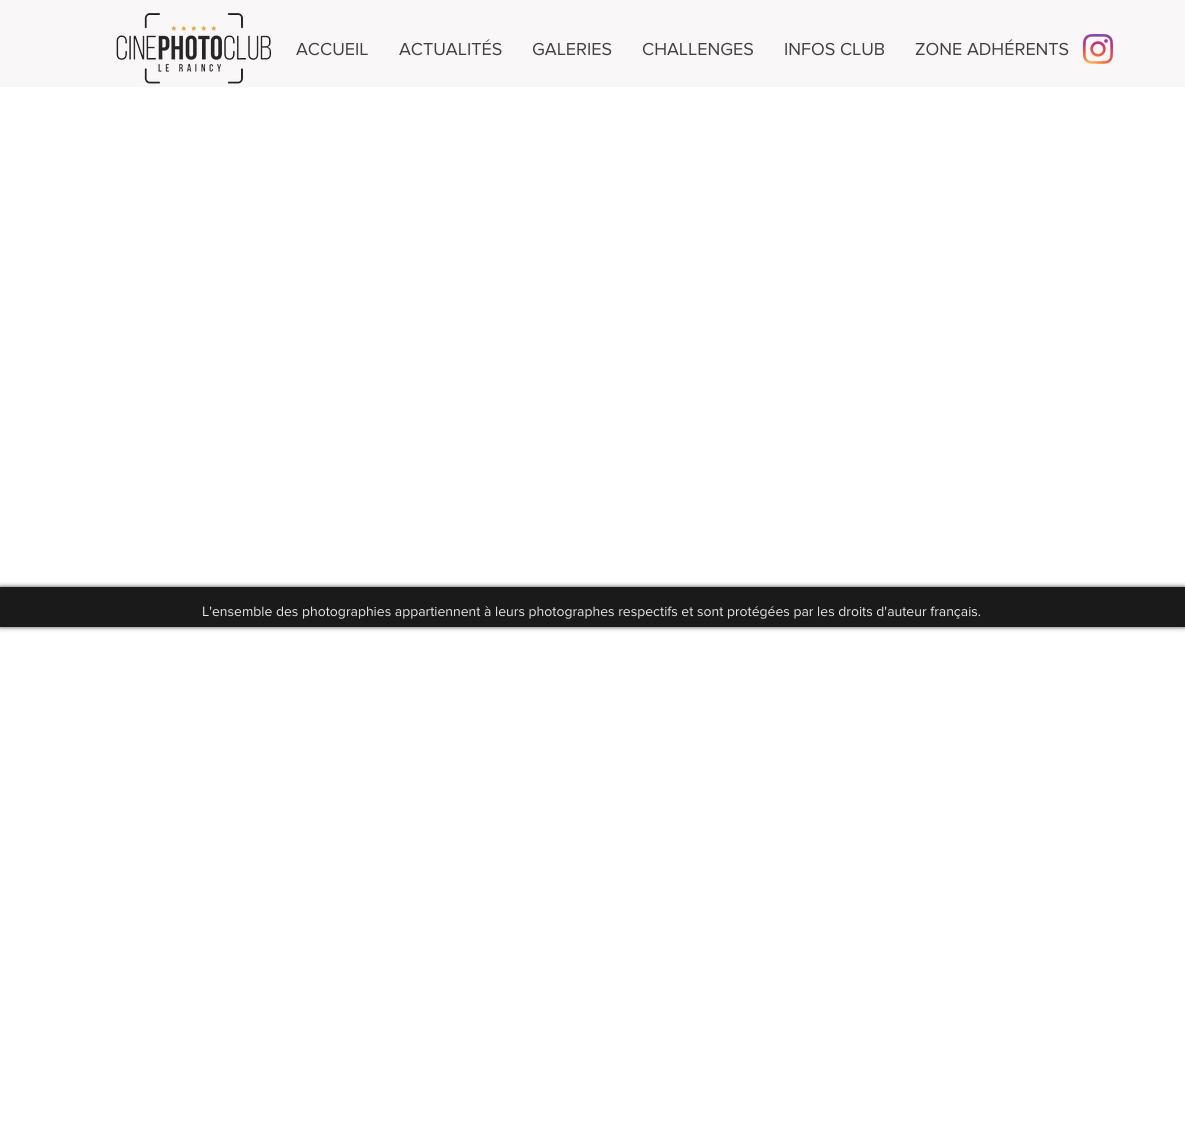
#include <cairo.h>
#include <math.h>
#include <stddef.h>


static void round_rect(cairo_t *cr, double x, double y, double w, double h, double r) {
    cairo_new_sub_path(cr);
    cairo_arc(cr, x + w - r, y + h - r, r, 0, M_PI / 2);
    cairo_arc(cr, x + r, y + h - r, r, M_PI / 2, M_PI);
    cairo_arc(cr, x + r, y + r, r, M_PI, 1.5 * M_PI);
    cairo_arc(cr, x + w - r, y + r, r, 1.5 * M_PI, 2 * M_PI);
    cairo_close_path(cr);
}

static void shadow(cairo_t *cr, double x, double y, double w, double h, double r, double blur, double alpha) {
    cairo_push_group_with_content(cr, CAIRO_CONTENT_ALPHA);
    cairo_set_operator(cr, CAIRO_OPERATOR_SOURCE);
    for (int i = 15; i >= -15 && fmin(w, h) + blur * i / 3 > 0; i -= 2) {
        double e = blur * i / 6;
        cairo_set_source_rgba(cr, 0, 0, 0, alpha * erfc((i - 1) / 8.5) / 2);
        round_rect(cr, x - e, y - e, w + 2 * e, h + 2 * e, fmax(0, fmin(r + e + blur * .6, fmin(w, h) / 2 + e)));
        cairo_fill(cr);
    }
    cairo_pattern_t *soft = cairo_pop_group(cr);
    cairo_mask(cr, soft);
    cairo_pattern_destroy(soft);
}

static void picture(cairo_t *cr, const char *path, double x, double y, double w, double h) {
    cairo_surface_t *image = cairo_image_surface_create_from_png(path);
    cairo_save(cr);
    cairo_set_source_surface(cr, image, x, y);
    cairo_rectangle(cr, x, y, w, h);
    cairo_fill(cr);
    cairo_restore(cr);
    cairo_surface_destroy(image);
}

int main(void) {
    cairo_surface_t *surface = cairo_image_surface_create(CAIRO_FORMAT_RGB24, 1185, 1130);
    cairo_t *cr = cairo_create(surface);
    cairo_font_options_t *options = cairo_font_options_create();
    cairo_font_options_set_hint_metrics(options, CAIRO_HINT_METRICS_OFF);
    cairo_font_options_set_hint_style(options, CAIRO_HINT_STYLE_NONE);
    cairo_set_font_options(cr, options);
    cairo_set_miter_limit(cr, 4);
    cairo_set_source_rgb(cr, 1, 1, 1);
    cairo_paint(cr);
    cairo_set_source_rgb(cr, 0.973, 0.965, 0.965);
    cairo_rectangle(cr, 0, 0, 1185, 87);
    cairo_fill(cr);
    picture(cr, "img1.png", 116, 13, 156, 71);
    cairo_select_font_face(cr, "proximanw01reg", CAIRO_FONT_SLANT_NORMAL, CAIRO_FONT_WEIGHT_NORMAL);
    cairo_set_font_size(cr, 18);
    cairo_set_source_rgb(cr, 0.255, 0.255, 0.255);
    cairo_move_to(cr, 296, 55);
    cairo_show_text(cr, "ACCUEIL");
    cairo_move_to(cr, 399, 55);
    cairo_show_text(cr, "ACTUALITÉS");
    cairo_move_to(cr, 532, 55);
    cairo_show_text(cr, "GALERIES");
    cairo_move_to(cr, 642, 55);
    cairo_show_text(cr, "CHALLENGES");
    cairo_move_to(cr, 784, 55);
    cairo_show_text(cr, "INFOS CLUB");
    cairo_move_to(cr, 915, 55);
    cairo_show_text(cr, "ZONE ADHÉRENTS");
    picture(cr, "img2.png", 1083, 34, 30, 30);
    cairo_set_source_rgb(cr, 0, 0, 0);
    shadow(cr, 0, 587, 1185, 40, 0, 2.5, 0.7);
    cairo_set_source_rgb(cr, 0.102, 0.102, 0.102);
    cairo_rectangle(cr, 0, 587, 1185, 40);
    cairo_fill(cr);
    cairo_set_font_size(cr, 14);
    cairo_set_source_rgb(cr, 0.91, 0.902, 0.902);
    cairo_move_to(cr, 202, 616);
    cairo_show_text(cr, "L'ensemble des photographies appartiennent à leurs photographes respectifs et sont protégées par les droits d'auteur français.");
    cairo_surface_write_to_png(surface, "page.png");
    cairo_font_options_destroy(options);
    cairo_destroy(cr);
    cairo_surface_destroy(surface);
    return 0;
}
